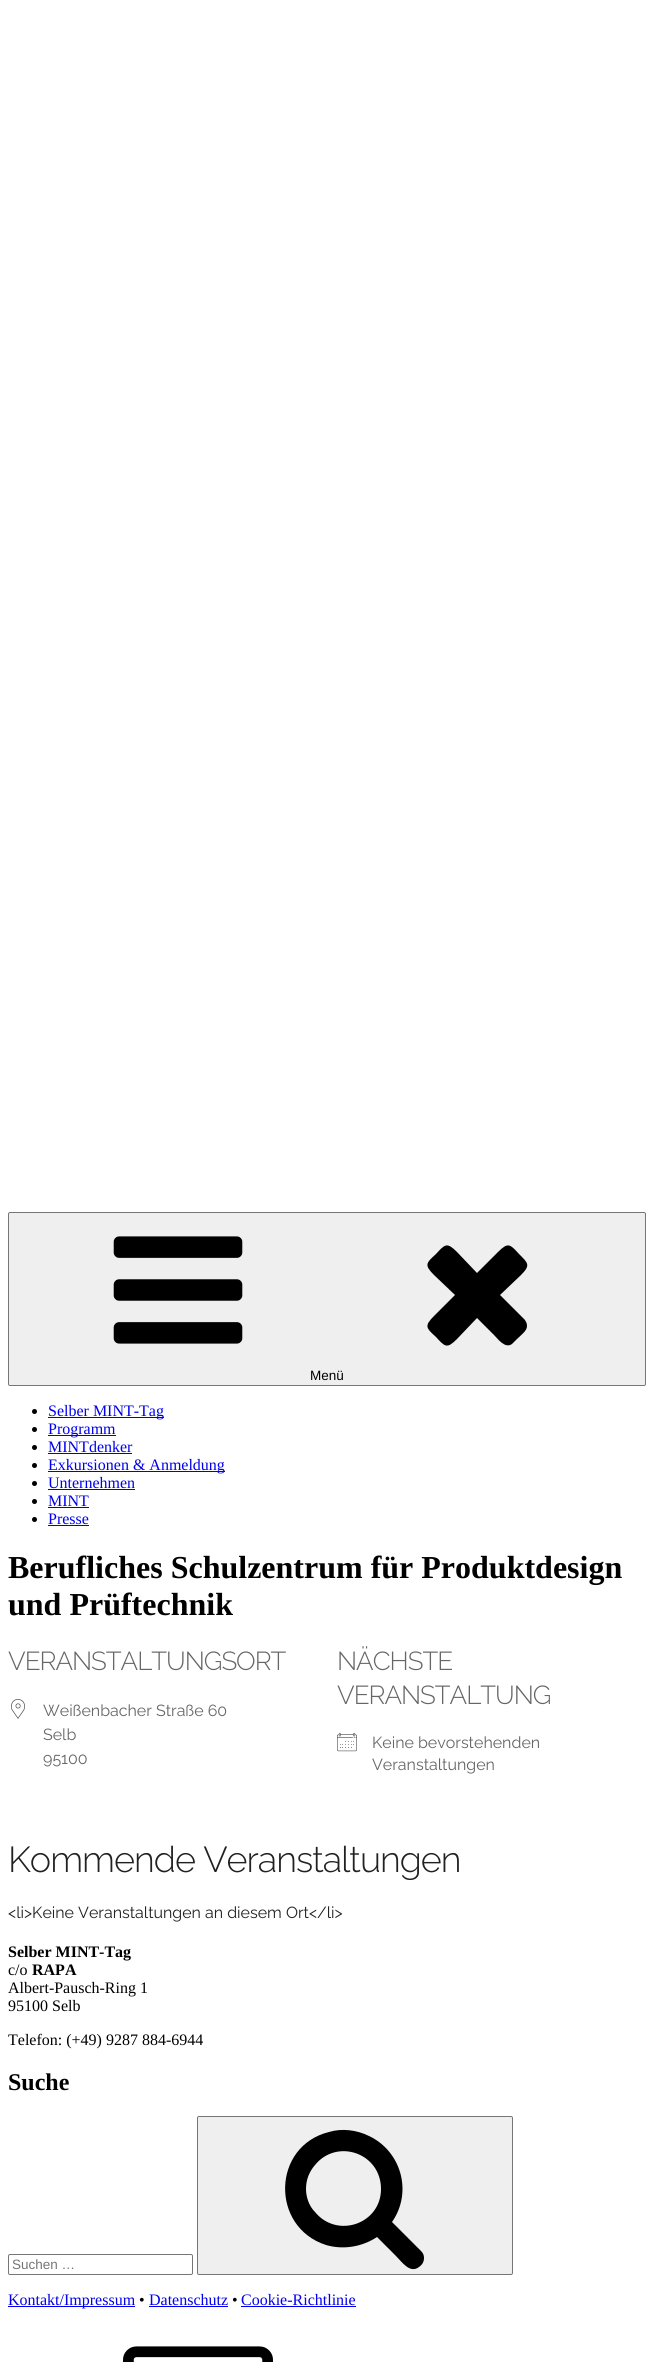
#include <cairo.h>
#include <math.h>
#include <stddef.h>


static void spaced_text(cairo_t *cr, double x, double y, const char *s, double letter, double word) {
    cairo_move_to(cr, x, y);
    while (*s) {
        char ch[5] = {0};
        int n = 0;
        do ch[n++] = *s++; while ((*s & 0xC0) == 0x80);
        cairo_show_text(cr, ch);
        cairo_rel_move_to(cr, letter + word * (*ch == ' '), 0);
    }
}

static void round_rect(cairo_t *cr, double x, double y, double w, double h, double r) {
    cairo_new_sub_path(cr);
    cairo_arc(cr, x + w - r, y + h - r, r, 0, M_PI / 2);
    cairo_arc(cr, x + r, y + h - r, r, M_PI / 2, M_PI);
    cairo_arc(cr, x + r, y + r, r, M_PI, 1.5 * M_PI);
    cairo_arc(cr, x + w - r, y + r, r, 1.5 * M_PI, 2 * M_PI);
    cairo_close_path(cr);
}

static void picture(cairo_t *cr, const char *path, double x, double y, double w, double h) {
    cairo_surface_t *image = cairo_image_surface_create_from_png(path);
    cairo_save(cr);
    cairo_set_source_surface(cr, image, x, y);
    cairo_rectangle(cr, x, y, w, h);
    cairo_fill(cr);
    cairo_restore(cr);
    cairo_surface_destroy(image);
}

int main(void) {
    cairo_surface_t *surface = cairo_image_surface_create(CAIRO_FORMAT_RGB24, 654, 2362);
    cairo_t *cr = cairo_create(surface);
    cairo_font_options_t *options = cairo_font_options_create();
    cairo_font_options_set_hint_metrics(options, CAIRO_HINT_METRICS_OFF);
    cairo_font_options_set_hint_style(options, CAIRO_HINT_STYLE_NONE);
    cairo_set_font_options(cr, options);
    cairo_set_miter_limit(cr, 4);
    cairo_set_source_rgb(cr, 1, 1, 1);
    cairo_paint(cr);
    cairo_set_source_rgb(cr, 0.937, 0.937, 0.937);
    round_rect(cr, 8.5, 1212.5, 637, 173, 1.5);
    cairo_fill_preserve(cr);
    cairo_set_source_rgb(cr, 0.463, 0.463, 0.463);
    cairo_set_line_width(cr, 1);
    cairo_stroke(cr);
    picture(cr, "img1.png", 113, 1236, 130, 108);
    cairo_set_source_rgb(cr, 0, 0, 0);
    cairo_new_path(cr);
    cairo_move_to(cr, 527, 1326);
    cairo_curve_to(cr, 527, 1331, 521, 1335, 517, 1339);
    cairo_line_to(cr, 512, 1344);
    cairo_curve_to(cr, 505, 1349, 498, 1339, 494, 1335);
    cairo_line_to(cr, 477, 1318);
    cairo_line_to(cr, 457, 1339);
    cairo_curve_to(cr, 447, 1349, 445, 1347, 436, 1337);
    cairo_curve_to(cr, 426, 1328, 424, 1326, 434, 1316);
    cairo_line_to(cr, 455, 1295);
    cairo_line_to(cr, 434, 1275);
    cairo_curve_to(cr, 424, 1265, 426, 1263, 436, 1254);
    cairo_curve_to(cr, 445, 1244, 447, 1242, 457, 1252);
    cairo_line_to(cr, 477, 1273);
    cairo_line_to(cr, 498, 1252);
    cairo_curve_to(cr, 508, 1242, 510, 1244, 519, 1254);
    cairo_curve_to(cr, 528, 1263, 531, 1265, 521, 1275);
    cairo_line_to(cr, 500, 1295);
    cairo_line_to(cr, 525, 1320);
    cairo_curve_to(cr, 526, 1322, 527, 1323, 527, 1326);
    cairo_close_path(cr);
    cairo_fill(cr);
    cairo_select_font_face(cr, "Liberation Sans", CAIRO_FONT_SLANT_NORMAL, CAIRO_FONT_WEIGHT_NORMAL);
    cairo_set_font_size(cr, 13.5);
    cairo_move_to(cr, 310, 1380);
    cairo_show_text(cr, "Menü");
    cairo_new_path(cr);
    cairo_arc(cr, 34.5, 1411.5, 2.5, 0, 2 * M_PI);
    cairo_fill(cr);
    cairo_set_source_rgb(cr, 0, 0, 0.933);
    cairo_rectangle(cr, 48, 1417, 116, 1);
    cairo_fill(cr);
    cairo_select_font_face(cr, "Liberation Serif", CAIRO_FONT_SLANT_NORMAL, CAIRO_FONT_WEIGHT_NORMAL);
    cairo_set_font_size(cr, 16);
    cairo_move_to(cr, 48, 1416);
    cairo_show_text(cr, "Selber MINT-Tag");
    cairo_set_source_rgb(cr, 0, 0, 0);
    cairo_new_path(cr);
    cairo_arc(cr, 34.5, 1429.5, 2.5, 0, 2 * M_PI);
    cairo_fill(cr);
    cairo_set_source_rgb(cr, 0, 0, 0.933);
    cairo_rectangle(cr, 48, 1435, 68, 1);
    cairo_fill(cr);
    cairo_move_to(cr, 48, 1434);
    cairo_show_text(cr, "Programm");
    cairo_set_source_rgb(cr, 0, 0, 0);
    cairo_new_path(cr);
    cairo_arc(cr, 34.5, 1447.5, 2.5, 0, 2 * M_PI);
    cairo_fill(cr);
    cairo_set_source_rgb(cr, 0, 0, 0.933);
    cairo_move_to(cr, 48, 1452);
    cairo_show_text(cr, "MINTdenker");
    cairo_rectangle(cr, 48, 1453, 84, 1);
    cairo_fill(cr);
    cairo_set_source_rgb(cr, 0, 0, 0);
    cairo_arc(cr, 34.5, 1465.5, 2.5, 0, 2 * M_PI);
    cairo_fill(cr);
    cairo_set_source_rgb(cr, 0, 0, 0.933);
    cairo_rectangle(cr, 48, 1471, 177, 1);
    cairo_fill(cr);
    cairo_move_to(cr, 48, 1470);
    cairo_show_text(cr, "Exkursionen & Anmeldung");
    cairo_set_source_rgb(cr, 0, 0, 0);
    cairo_new_path(cr);
    cairo_arc(cr, 34.5, 1483.5, 2.5, 0, 2 * M_PI);
    cairo_fill(cr);
    cairo_set_source_rgb(cr, 0, 0, 0.933);
    cairo_move_to(cr, 48, 1488);
    cairo_show_text(cr, "Unternehmen");
    cairo_rectangle(cr, 48, 1489, 87, 1);
    cairo_fill(cr);
    cairo_set_source_rgb(cr, 0, 0, 0);
    cairo_arc(cr, 34.5, 1501.5, 2.5, 0, 2 * M_PI);
    cairo_fill(cr);
    cairo_set_source_rgb(cr, 0, 0, 0.933);
    cairo_move_to(cr, 48, 1506);
    cairo_show_text(cr, "MINT");
    cairo_rectangle(cr, 48, 1507, 41, 1);
    cairo_fill(cr);
    cairo_set_source_rgb(cr, 0, 0, 0);
    cairo_arc(cr, 34.5, 1519.5, 2.5, 0, 2 * M_PI);
    cairo_fill(cr);
    cairo_set_source_rgb(cr, 0, 0, 0.933);
    cairo_move_to(cr, 48, 1524);
    cairo_show_text(cr, "Presse");
    cairo_rectangle(cr, 48, 1525, 41, 1);
    cairo_fill(cr);
    cairo_select_font_face(cr, "Liberation Serif", CAIRO_FONT_SLANT_NORMAL, CAIRO_FONT_WEIGHT_BOLD);
    cairo_set_font_size(cr, 32);
    cairo_set_source_rgb(cr, 0, 0, 0);
    cairo_move_to(cr, 8, 1578);
    cairo_show_text(cr, "Berufliches Schulzentrum für Produktdesign");
    cairo_move_to(cr, 8, 1615);
    cairo_show_text(cr, "und Prüftechnik");
    cairo_select_font_face(cr, "Raleway Light", CAIRO_FONT_SLANT_NORMAL, CAIRO_FONT_WEIGHT_NORMAL);
    cairo_set_font_size(cr, 26);
    cairo_set_source_rgb(cr, 0.4, 0.4, 0.4);
    spaced_text(cr, 8, 1670, "VERANSTALTUNGSORT", -1, 0);
    picture(cr, "img2.png", 11, 1699, 14, 20);
    cairo_select_font_face(cr, "Raleway", CAIRO_FONT_SLANT_NORMAL, CAIRO_FONT_WEIGHT_NORMAL);
    cairo_set_font_size(cr, 16);
    cairo_move_to(cr, 43, 1716);
    cairo_show_text(cr, "Weißenbacher Straße 60");
    cairo_move_to(cr, 43, 1740);
    cairo_show_text(cr, "Selb");
    cairo_move_to(cr, 43, 1764);
    cairo_show_text(cr, "95100");
    cairo_select_font_face(cr, "Raleway Light", CAIRO_FONT_SLANT_NORMAL, CAIRO_FONT_WEIGHT_NORMAL);
    cairo_set_font_size(cr, 26);
    spaced_text(cr, 337, 1670, "NÄCHSTE", -1, 0);
    spaced_text(cr, 337, 1704, "VERANSTALTUNG", -1, 0);
    picture(cr, "img3.png", 337, 1732, 20, 20);
    cairo_select_font_face(cr, "Raleway", CAIRO_FONT_SLANT_NORMAL, CAIRO_FONT_WEIGHT_NORMAL);
    cairo_set_font_size(cr, 16);
    cairo_move_to(cr, 372, 1748);
    cairo_show_text(cr, "Keine bevorstehenden");
    cairo_move_to(cr, 372, 1770);
    cairo_show_text(cr, "Veranstaltungen");
    cairo_select_font_face(cr, "Raleway Light", CAIRO_FONT_SLANT_NORMAL, CAIRO_FONT_WEIGHT_NORMAL);
    cairo_set_font_size(cr, 36);
    cairo_set_source_rgb(cr, 0.129, 0.129, 0.129);
    spaced_text(cr, 8, 1872, "Kommende Veranstaltungen", -1, 0);
    cairo_select_font_face(cr, "Raleway", CAIRO_FONT_SLANT_NORMAL, CAIRO_FONT_WEIGHT_NORMAL);
    cairo_set_font_size(cr, 16);
    cairo_move_to(cr, 8, 1918);
    cairo_show_text(cr, "<li>Keine Veranstaltungen an diesem Ort</li>");
    cairo_select_font_face(cr, "Liberation Serif", CAIRO_FONT_SLANT_NORMAL, CAIRO_FONT_WEIGHT_BOLD);
    cairo_set_source_rgb(cr, 0, 0, 0);
    cairo_move_to(cr, 8, 1957);
    cairo_show_text(cr, "Selber MINT-Tag");
    cairo_select_font_face(cr, "Liberation Serif", CAIRO_FONT_SLANT_NORMAL, CAIRO_FONT_WEIGHT_NORMAL);
    cairo_move_to(cr, 8, 1975);
    cairo_show_text(cr, "c/o");
    cairo_select_font_face(cr, "Liberation Serif", CAIRO_FONT_SLANT_NORMAL, CAIRO_FONT_WEIGHT_BOLD);
    cairo_move_to(cr, 32, 1975);
    cairo_show_text(cr, "RAPA");
    cairo_select_font_face(cr, "Liberation Serif", CAIRO_FONT_SLANT_NORMAL, CAIRO_FONT_WEIGHT_NORMAL);
    cairo_move_to(cr, 8, 1993);
    cairo_show_text(cr, "Albert-Pausch-Ring 1");
    cairo_move_to(cr, 8, 2011);
    cairo_show_text(cr, "95100 Selb");
    cairo_move_to(cr, 8, 2045);
    cairo_show_text(cr, "Telefon: (+49) 9287 884-6944");
    cairo_select_font_face(cr, "Liberation Serif", CAIRO_FONT_SLANT_NORMAL, CAIRO_FONT_WEIGHT_BOLD);
    cairo_set_font_size(cr, 24);
    cairo_move_to(cr, 8, 2090);
    cairo_show_text(cr, "Suche");
    round_rect(cr, 8.5, 2254.5, 184, 20, 1.5);
    cairo_set_source_rgb(cr, 0.463, 0.463, 0.463);
    cairo_stroke(cr);
    cairo_select_font_face(cr, "Liberation Sans", CAIRO_FONT_SLANT_NORMAL, CAIRO_FONT_WEIGHT_NORMAL);
    cairo_set_font_size(cr, 13.5);
    cairo_set_source_rgb(cr, 0.459, 0.459, 0.459);
    cairo_move_to(cr, 12, 2269);
    cairo_show_text(cr, "Suchen …");
    cairo_set_source_rgb(cr, 0.937, 0.937, 0.937);
    round_rect(cr, 197.5, 2116.5, 315, 158, 1.5);
    cairo_fill_preserve(cr);
    cairo_set_source_rgb(cr, 0.463, 0.463, 0.463);
    cairo_stroke(cr);
    cairo_set_source_rgb(cr, 0, 0, 0);
    cairo_new_path(cr);
    cairo_move_to(cr, 381, 2189);
    cairo_curve_to(cr, 381, 2153, 337, 2138, 315, 2165);
    cairo_curve_to(cr, 309, 2172, 306, 2180, 306, 2189);
    cairo_curve_to(cr, 306, 2197, 309, 2206, 315, 2212);
    cairo_curve_to(cr, 337, 2239, 381, 2224, 381, 2189);
    cairo_close_path(cr);
    cairo_move_to(cr, 424, 2258);
    cairo_curve_to(cr, 424, 2262, 422, 2265, 419, 2267);
    cairo_curve_to(cr, 410, 2274, 402, 2262, 396, 2256);
    cairo_line_to(cr, 377, 2237);
    cairo_curve_to(cr, 362, 2247, 343, 2250, 326, 2245);
    cairo_curve_to(cr, 270, 2227, 272, 2146, 329, 2132);
    cairo_curve_to(cr, 342, 2128, 357, 2130, 369, 2136);
    cairo_curve_to(cr, 401, 2151, 413, 2192, 392, 2222);
    cairo_line_to(cr, 421, 2251);
    cairo_curve_to(cr, 423, 2253, 424, 2255, 424, 2258);
    cairo_close_path(cr);
    cairo_fill(cr);
    cairo_set_source_rgb(cr, 0, 0, 0.933);
    cairo_rectangle(cr, 8, 2306, 127, 1);
    cairo_fill(cr);
    cairo_select_font_face(cr, "Liberation Serif", CAIRO_FONT_SLANT_NORMAL, CAIRO_FONT_WEIGHT_NORMAL);
    cairo_set_font_size(cr, 16);
    cairo_move_to(cr, 8, 2305);
    cairo_show_text(cr, "Kontakt/Impressum");
    cairo_set_source_rgb(cr, 0, 0, 0);
    cairo_move_to(cr, 139, 2305);
    cairo_show_text(cr, "•");
    cairo_set_source_rgb(cr, 0, 0, 0.933);
    cairo_move_to(cr, 149, 2305);
    cairo_show_text(cr, "Datenschutz");
    cairo_rectangle(cr, 149, 2306, 79, 1);
    cairo_fill(cr);
    cairo_set_source_rgb(cr, 0, 0, 0);
    cairo_move_to(cr, 232, 2305);
    cairo_show_text(cr, "•");
    cairo_set_source_rgb(cr, 0, 0, 0.933);
    cairo_move_to(cr, 241, 2305);
    cairo_show_text(cr, "Cookie-Richtlinie");
    cairo_rectangle(cr, 241, 2306, 115, 1);
    cairo_fill(cr);
    picture(cr, "img4.png", 123, 2346, 150, 16);
    cairo_surface_write_to_png(surface, "page.png");
    cairo_font_options_destroy(options);
    cairo_destroy(cr);
    cairo_surface_destroy(surface);
    return 0;
}
